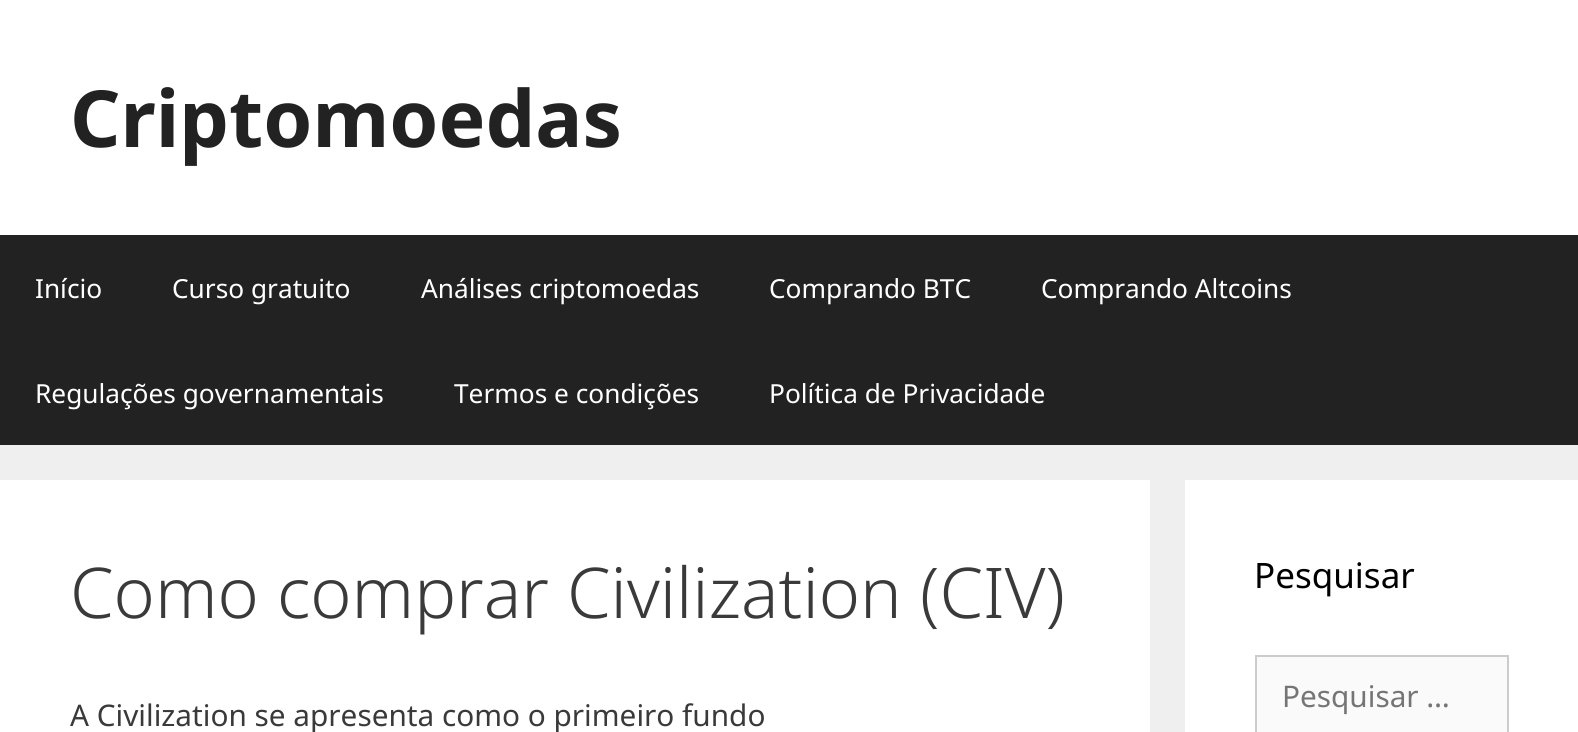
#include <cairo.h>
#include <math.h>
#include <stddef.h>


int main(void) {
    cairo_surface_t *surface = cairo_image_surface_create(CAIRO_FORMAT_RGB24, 1578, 732);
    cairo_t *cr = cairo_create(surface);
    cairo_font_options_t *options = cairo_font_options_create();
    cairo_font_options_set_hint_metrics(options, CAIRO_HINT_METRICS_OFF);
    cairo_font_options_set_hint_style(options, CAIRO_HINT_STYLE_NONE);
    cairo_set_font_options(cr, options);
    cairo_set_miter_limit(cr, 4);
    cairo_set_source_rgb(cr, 0.937, 0.937, 0.937);
    cairo_paint(cr);
    cairo_set_source_rgb(cr, 1, 1, 1);
    cairo_rectangle(cr, 0, 0, 1578, 235);
    cairo_fill(cr);
    cairo_select_font_face(cr, "Noto Sans", CAIRO_FONT_SLANT_NORMAL, CAIRO_FONT_WEIGHT_BOLD);
    cairo_set_font_size(cr, 78.75);
    cairo_set_source_rgb(cr, 0.133, 0.133, 0.133);
    cairo_move_to(cr, 70, 147);
    cairo_show_text(cr, "Criptomoedas");
    cairo_rectangle(cr, 0, 235, 1578, 210);
    cairo_fill(cr);
    cairo_select_font_face(cr, "Noto Sans", CAIRO_FONT_SLANT_NORMAL, CAIRO_FONT_WEIGHT_NORMAL);
    cairo_set_font_size(cr, 26.25);
    cairo_set_source_rgb(cr, 1, 1, 1);
    cairo_move_to(cr, 35, 298);
    cairo_show_text(cr, "Início");
    cairo_move_to(cr, 172, 298);
    cairo_show_text(cr, "Curso gratuito");
    cairo_move_to(cr, 421, 298);
    cairo_show_text(cr, "Análises criptomoedas");
    cairo_move_to(cr, 769, 298);
    cairo_show_text(cr, "Comprando BTC");
    cairo_move_to(cr, 1041, 298);
    cairo_show_text(cr, "Comprando Altcoins");
    cairo_move_to(cr, 35, 403);
    cairo_show_text(cr, "Regulações governamentais");
    cairo_move_to(cr, 454, 403);
    cairo_show_text(cr, "Termos e condições");
    cairo_move_to(cr, 769, 403);
    cairo_show_text(cr, "Política de Privacidade");
    cairo_rectangle(cr, 0, 480, 1150, 252);
    cairo_fill(cr);
    cairo_select_font_face(cr, "Noto Sans Light", CAIRO_FONT_SLANT_NORMAL, CAIRO_FONT_WEIGHT_NORMAL);
    cairo_set_font_size(cr, 70);
    cairo_set_source_rgb(cr, 0.227, 0.227, 0.227);
    cairo_move_to(cr, 70, 618);
    cairo_show_text(cr, "Como comprar Civilization (CIV)");
    cairo_select_font_face(cr, "Noto Sans", CAIRO_FONT_SLANT_NORMAL, CAIRO_FONT_WEIGHT_NORMAL);
    cairo_set_font_size(cr, 29.75);
    cairo_move_to(cr, 70, 726);
    cairo_show_text(cr, "A Civilization se apresenta como o primeiro fundo");
    cairo_set_source_rgb(cr, 1, 1, 1);
    cairo_rectangle(cr, 1185, 480, 393, 252);
    cairo_fill(cr);
    cairo_set_font_size(cr, 35);
    cairo_set_source_rgb(cr, 0, 0, 0);
    cairo_move_to(cr, 1254, 588);
    cairo_show_text(cr, "Pesquisar");
    cairo_set_source_rgb(cr, 0.98, 0.98, 0.98);
    cairo_rectangle(cr, 1256, 656, 252, 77);
    cairo_fill_preserve(cr);
    cairo_set_source_rgb(cr, 0.8, 0.8, 0.8);
    cairo_stroke(cr);
    cairo_set_font_size(cr, 29.75);
    cairo_set_source_rgb(cr, 0.459, 0.459, 0.459);
    cairo_move_to(cr, 1282, 707);
    cairo_show_text(cr, "Pesquisar …");
    cairo_surface_write_to_png(surface, "page.png");
    cairo_font_options_destroy(options);
    cairo_destroy(cr);
    cairo_surface_destroy(surface);
    return 0;
}
